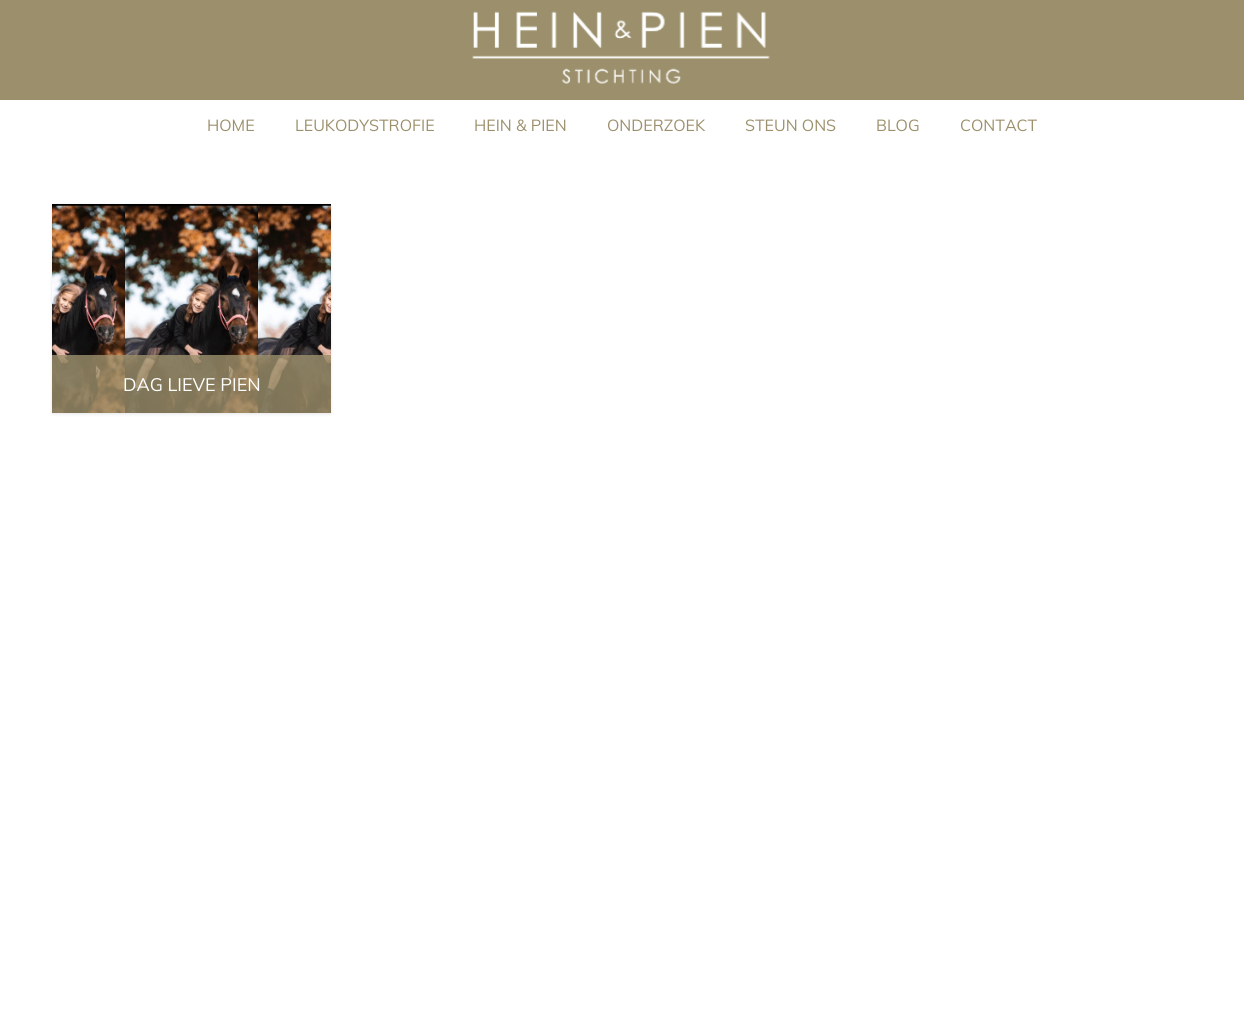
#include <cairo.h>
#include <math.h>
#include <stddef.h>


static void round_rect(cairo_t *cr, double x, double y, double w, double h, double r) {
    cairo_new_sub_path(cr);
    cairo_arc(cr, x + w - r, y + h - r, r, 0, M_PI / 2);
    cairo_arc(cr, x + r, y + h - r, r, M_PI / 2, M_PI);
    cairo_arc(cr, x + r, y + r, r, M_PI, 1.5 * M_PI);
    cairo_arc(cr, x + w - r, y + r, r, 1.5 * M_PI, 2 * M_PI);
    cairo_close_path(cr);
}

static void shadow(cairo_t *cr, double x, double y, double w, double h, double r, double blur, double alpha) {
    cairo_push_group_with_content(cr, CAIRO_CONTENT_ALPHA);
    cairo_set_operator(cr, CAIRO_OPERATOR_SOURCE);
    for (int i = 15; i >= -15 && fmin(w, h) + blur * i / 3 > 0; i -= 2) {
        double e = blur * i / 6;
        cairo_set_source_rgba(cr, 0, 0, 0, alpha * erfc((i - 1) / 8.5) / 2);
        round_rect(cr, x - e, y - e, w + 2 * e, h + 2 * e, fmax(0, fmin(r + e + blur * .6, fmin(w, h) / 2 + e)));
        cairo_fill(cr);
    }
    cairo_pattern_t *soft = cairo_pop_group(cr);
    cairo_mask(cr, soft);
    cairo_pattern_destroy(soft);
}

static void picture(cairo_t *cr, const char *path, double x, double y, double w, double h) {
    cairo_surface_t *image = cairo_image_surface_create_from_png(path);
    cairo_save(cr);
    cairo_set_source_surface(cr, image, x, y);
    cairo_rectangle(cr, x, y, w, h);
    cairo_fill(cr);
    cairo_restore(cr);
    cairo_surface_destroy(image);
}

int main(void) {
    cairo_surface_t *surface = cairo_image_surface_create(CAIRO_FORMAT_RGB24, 1244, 1020);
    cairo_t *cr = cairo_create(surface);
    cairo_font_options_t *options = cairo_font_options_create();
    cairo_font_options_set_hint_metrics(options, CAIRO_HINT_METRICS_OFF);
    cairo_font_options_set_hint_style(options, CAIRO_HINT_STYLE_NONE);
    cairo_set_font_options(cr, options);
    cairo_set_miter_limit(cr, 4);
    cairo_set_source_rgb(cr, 1, 1, 1);
    cairo_paint(cr);
    cairo_set_source_rgb(cr, 0.612, 0.565, 0.424);
    cairo_rectangle(cr, 0, 0, 1244, 100);
    cairo_fill(cr);
    picture(cr, "img1.png", 472, 11, 298, 73);
    cairo_select_font_face(cr, "Muli", CAIRO_FONT_SLANT_NORMAL, CAIRO_FONT_WEIGHT_NORMAL);
    cairo_set_font_size(cr, 16);
    cairo_move_to(cr, 207, 131);
    cairo_show_text(cr, "HOME");
    cairo_move_to(cr, 295, 131);
    cairo_show_text(cr, "LEUKODYSTROFIE");
    cairo_move_to(cr, 474, 131);
    cairo_show_text(cr, "HEIN & PIEN");
    cairo_move_to(cr, 607, 131);
    cairo_show_text(cr, "ONDERZOEK");
    cairo_move_to(cr, 745, 131);
    cairo_show_text(cr, "STEUN ONS");
    cairo_move_to(cr, 876, 131);
    cairo_show_text(cr, "BLOG");
    cairo_move_to(cr, 960, 131);
    cairo_show_text(cr, "CONTACT");
    cairo_set_source_rgb(cr, 0, 0, 0);
    shadow(cr, 52, 205, 279, 209, 0, 1.5, 0.1);
    picture(cr, "img2.png", 52, 204, 279, 209);
    cairo_set_source_rgba(cr, 0.612, 0.565, 0.424, 0.8);
    cairo_rectangle(cr, 52, 355, 279, 58);
    cairo_fill(cr);
    cairo_set_font_size(cr, 18);
    cairo_set_source_rgb(cr, 1, 1, 1);
    cairo_move_to(cr, 123, 391);
    cairo_show_text(cr, "DAG LIEVE PIEN");
    cairo_surface_write_to_png(surface, "page.png");
    cairo_font_options_destroy(options);
    cairo_destroy(cr);
    cairo_surface_destroy(surface);
    return 0;
}
